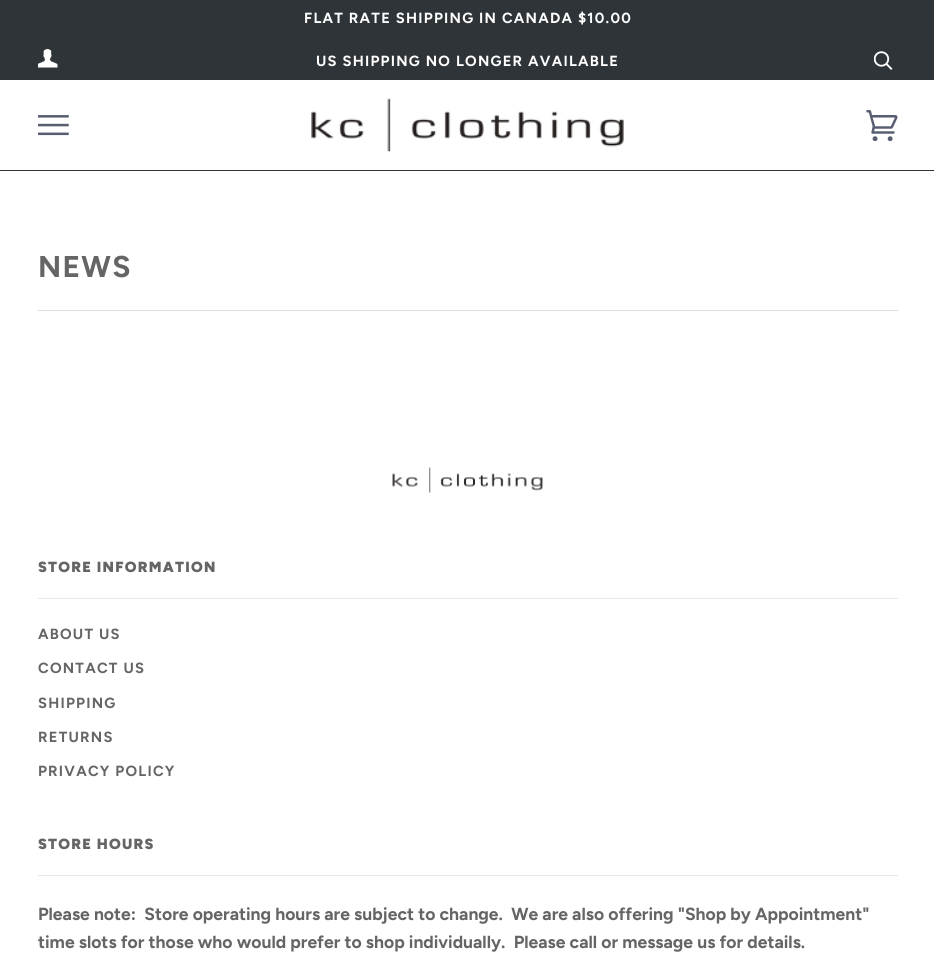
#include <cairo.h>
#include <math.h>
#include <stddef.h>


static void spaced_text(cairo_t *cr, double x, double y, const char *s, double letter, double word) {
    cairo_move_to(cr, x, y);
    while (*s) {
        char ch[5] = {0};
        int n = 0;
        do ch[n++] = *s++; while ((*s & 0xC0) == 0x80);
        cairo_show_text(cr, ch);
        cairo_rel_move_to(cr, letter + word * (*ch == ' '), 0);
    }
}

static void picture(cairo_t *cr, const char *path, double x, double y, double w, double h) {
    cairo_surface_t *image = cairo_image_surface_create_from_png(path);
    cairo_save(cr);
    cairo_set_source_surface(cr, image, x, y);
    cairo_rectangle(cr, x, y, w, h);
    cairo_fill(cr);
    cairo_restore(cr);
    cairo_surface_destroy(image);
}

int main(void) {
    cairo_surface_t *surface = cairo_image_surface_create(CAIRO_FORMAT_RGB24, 934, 971);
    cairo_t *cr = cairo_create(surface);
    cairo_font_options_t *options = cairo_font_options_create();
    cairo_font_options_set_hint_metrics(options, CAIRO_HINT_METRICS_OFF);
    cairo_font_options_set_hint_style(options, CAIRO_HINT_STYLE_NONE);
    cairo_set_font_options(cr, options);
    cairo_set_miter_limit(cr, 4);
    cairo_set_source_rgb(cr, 1, 1, 1);
    cairo_paint(cr);
    cairo_set_source_rgb(cr, 0.18, 0.204, 0.22);
    cairo_rectangle(cr, 0, 0, 934, 80);
    cairo_fill(cr);
    cairo_select_font_face(cr, "Figtree", CAIRO_FONT_SLANT_NORMAL, CAIRO_FONT_WEIGHT_BOLD);
    cairo_set_font_size(cr, 14.7);
    cairo_set_source_rgb(cr, 1, 1, 1);
    spaced_text(cr, 304, 23, "FLAT RATE SHIPPING IN CANADA $10.00", 1.25, 0);
    picture(cr, "img1.png", 38, 49, 20, 19);
    spaced_text(cr, 316, 66, "US SHIPPING NO LONGER AVAILABLE", 1.25, 0);
    picture(cr, "img2.png", 874, 51, 19, 19);
    cairo_set_source_rgb(cr, 0.18, 0.204, 0.22);
    cairo_rectangle(cr, 0, 170, 934, 1);
    cairo_fill(cr);
    picture(cr, "img3.png", 38, 115, 31, 21);
    picture(cr, "img4.png", 311, 98, 313, 54);
    picture(cr, "img5.png", 866, 110, 32, 31);
    cairo_set_font_size(cr, 30);
    cairo_set_source_rgb(cr, 0.396, 0.396, 0.396);
    spaced_text(cr, 38, 277, "NEWS", 1.25, 0);
    cairo_set_source_rgb(cr, 0.867, 0.867, 0.867);
    cairo_rectangle(cr, 38, 310, 860, 1);
    cairo_fill(cr);
    picture(cr, "img6.png", 392, 467, 151, 26);
    cairo_select_font_face(cr, "Figtree Black", CAIRO_FONT_SLANT_NORMAL, CAIRO_FONT_WEIGHT_NORMAL);
    cairo_set_font_size(cr, 14.7);
    cairo_set_source_rgb(cr, 0.396, 0.396, 0.396);
    spaced_text(cr, 38, 572, "STORE INFORMATION", 1.25, 0);
    cairo_set_source_rgb(cr, 0.91, 0.91, 0.91);
    cairo_rectangle(cr, 38, 598, 860, 1);
    cairo_fill(cr);
    cairo_select_font_face(cr, "Figtree", CAIRO_FONT_SLANT_NORMAL, CAIRO_FONT_WEIGHT_BOLD);
    cairo_set_source_rgb(cr, 0.396, 0.396, 0.396);
    spaced_text(cr, 38, 639, "ABOUT US", 1.25, 0);
    spaced_text(cr, 38, 673, "CONTACT US", 1.25, 0);
    spaced_text(cr, 38, 708, "SHIPPING", 1.25, 0);
    spaced_text(cr, 38, 742, "RETURNS", 1.25, 0);
    spaced_text(cr, 38, 776, "PRIVACY POLICY", 1.25, 0);
    cairo_select_font_face(cr, "Figtree Black", CAIRO_FONT_SLANT_NORMAL, CAIRO_FONT_WEIGHT_NORMAL);
    spaced_text(cr, 38, 849, "STORE HOURS", 1.25, 0);
    cairo_set_source_rgb(cr, 0.91, 0.91, 0.91);
    cairo_rectangle(cr, 38, 875, 860, 1);
    cairo_fill(cr);
    cairo_select_font_face(cr, "Figtree", CAIRO_FONT_SLANT_NORMAL, CAIRO_FONT_WEIGHT_BOLD);
    cairo_set_font_size(cr, 17.5);
    cairo_set_source_rgb(cr, 0.396, 0.396, 0.396);
    cairo_move_to(cr, 38, 920);
    cairo_show_text(cr, "Please note:  Store operating hours are subject to change.  We are also offering \"Shop by Appointment\"");
    cairo_move_to(cr, 38, 948);
    cairo_show_text(cr, "time slots for those who would prefer to shop individually.  Please call or message us for details.");
    cairo_surface_write_to_png(surface, "page.png");
    cairo_font_options_destroy(options);
    cairo_destroy(cr);
    cairo_surface_destroy(surface);
    return 0;
}
